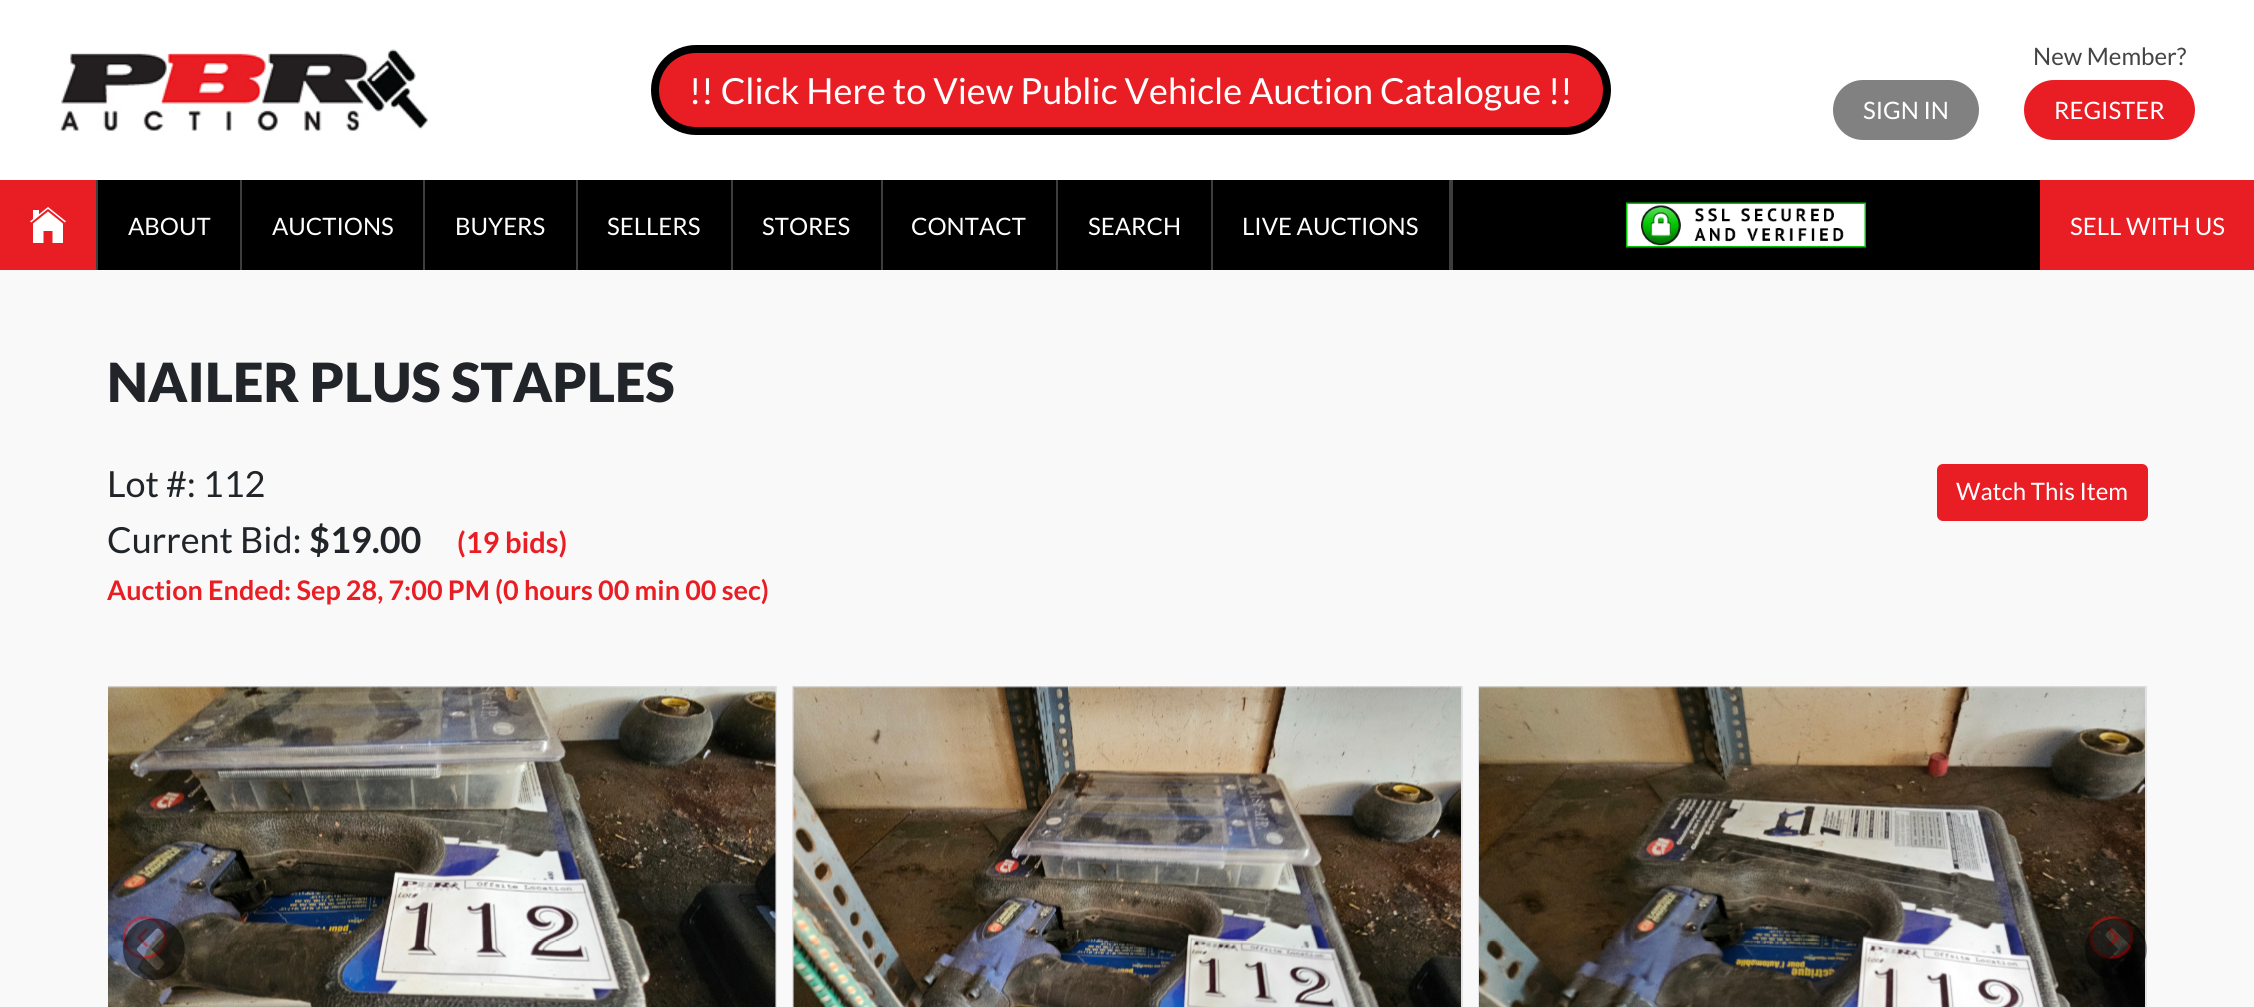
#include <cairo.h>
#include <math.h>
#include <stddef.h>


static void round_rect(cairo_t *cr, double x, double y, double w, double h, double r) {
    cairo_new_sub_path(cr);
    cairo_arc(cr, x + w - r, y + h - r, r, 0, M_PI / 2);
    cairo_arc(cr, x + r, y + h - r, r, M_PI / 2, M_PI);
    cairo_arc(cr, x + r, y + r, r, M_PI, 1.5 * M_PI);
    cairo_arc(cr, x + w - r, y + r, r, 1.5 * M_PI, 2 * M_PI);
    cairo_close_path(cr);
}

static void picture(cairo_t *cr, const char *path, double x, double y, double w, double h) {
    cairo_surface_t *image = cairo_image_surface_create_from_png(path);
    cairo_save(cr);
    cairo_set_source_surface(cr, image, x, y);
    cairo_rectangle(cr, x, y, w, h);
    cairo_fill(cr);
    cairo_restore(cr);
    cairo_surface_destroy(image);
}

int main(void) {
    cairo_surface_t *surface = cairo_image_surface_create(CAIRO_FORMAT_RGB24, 2254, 1007);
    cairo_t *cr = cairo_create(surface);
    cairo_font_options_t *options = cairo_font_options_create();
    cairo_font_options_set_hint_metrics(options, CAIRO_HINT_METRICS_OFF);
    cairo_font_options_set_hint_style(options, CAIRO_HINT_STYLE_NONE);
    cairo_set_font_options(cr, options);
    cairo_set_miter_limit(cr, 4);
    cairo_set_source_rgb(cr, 0.976, 0.976, 0.976);
    cairo_paint(cr);
    cairo_set_source_rgb(cr, 1, 1, 1);
    cairo_rectangle(cr, 0, 0, 2254, 180);
    cairo_fill(cr);
    picture(cr, "img1.png", 60, 49, 368, 82);
    cairo_set_source_rgb(cr, 0.914, 0.118, 0.141);
    round_rect(cr, 655, 49, 952, 82, 41);
    cairo_fill_preserve(cr);
    cairo_set_source_rgb(cr, 0, 0, 0);
    cairo_set_line_width(cr, 8);
    cairo_stroke(cr);
    cairo_select_font_face(cr, "Lato", CAIRO_FONT_SLANT_NORMAL, CAIRO_FONT_WEIGHT_NORMAL);
    cairo_set_font_size(cr, 36);
    cairo_set_source_rgb(cr, 1, 1, 1);
    cairo_move_to(cr, 689, 104);
    cairo_show_text(cr, "!! Click Here to View Public Vehicle Auction Catalogue !!");
    cairo_set_source_rgb(cr, 0.506, 0.506, 0.506);
    round_rect(cr, 1833, 80, 146, 60, 30);
    cairo_fill(cr);
    cairo_set_font_size(cr, 24);
    cairo_set_source_rgb(cr, 1, 1, 1);
    cairo_move_to(cr, 1863, 119);
    cairo_show_text(cr, "SIGN IN");
    cairo_set_source_rgb(cr, 0.267, 0.267, 0.267);
    cairo_move_to(cr, 2033, 65);
    cairo_show_text(cr, "New Member?");
    cairo_set_source_rgb(cr, 0.914, 0.118, 0.141);
    round_rect(cr, 2024, 80, 171, 60, 30);
    cairo_fill(cr);
    cairo_set_source_rgb(cr, 1, 1, 1);
    cairo_move_to(cr, 2054, 119);
    cairo_show_text(cr, "REGISTER");
    cairo_set_source_rgb(cr, 0, 0, 0);
    cairo_rectangle(cr, 98, 180, 1942, 90);
    cairo_fill(cr);
    cairo_set_source_rgb(cr, 0.239, 0.239, 0.239);
    cairo_rectangle(cr, 96, 180, 2, 90);
    cairo_fill(cr);
    cairo_set_source_rgb(cr, 0.914, 0.118, 0.141);
    cairo_rectangle(cr, 0, 180, 96, 90);
    cairo_fill(cr);
    picture(cr, "img2.png", 30, 207, 36, 36);
    cairo_set_source_rgb(cr, 0.239, 0.239, 0.239);
    cairo_rectangle(cr, 240, 180, 2, 90);
    cairo_fill(cr);
    cairo_set_source_rgb(cr, 1, 1, 1);
    cairo_move_to(cr, 128, 235);
    cairo_show_text(cr, "ABOUT");
    cairo_set_source_rgb(cr, 0.239, 0.239, 0.239);
    cairo_rectangle(cr, 423, 180, 2, 90);
    cairo_fill(cr);
    cairo_set_source_rgb(cr, 1, 1, 1);
    cairo_move_to(cr, 272, 235);
    cairo_show_text(cr, "AUCTIONS");
    cairo_set_source_rgb(cr, 0.239, 0.239, 0.239);
    cairo_rectangle(cr, 576, 180, 2, 90);
    cairo_fill(cr);
    cairo_set_source_rgb(cr, 1, 1, 1);
    cairo_move_to(cr, 455, 235);
    cairo_show_text(cr, "BUYERS");
    cairo_set_source_rgb(cr, 0.239, 0.239, 0.239);
    cairo_rectangle(cr, 731, 180, 2, 90);
    cairo_fill(cr);
    cairo_set_source_rgb(cr, 1, 1, 1);
    cairo_move_to(cr, 607, 235);
    cairo_show_text(cr, "SELLERS");
    cairo_set_source_rgb(cr, 0.239, 0.239, 0.239);
    cairo_rectangle(cr, 881, 180, 2, 90);
    cairo_fill(cr);
    cairo_set_source_rgb(cr, 1, 1, 1);
    cairo_move_to(cr, 762, 235);
    cairo_show_text(cr, "STORES");
    cairo_set_source_rgb(cr, 0.239, 0.239, 0.239);
    cairo_rectangle(cr, 1056, 180, 2, 90);
    cairo_fill(cr);
    cairo_set_source_rgb(cr, 1, 1, 1);
    cairo_move_to(cr, 911, 235);
    cairo_show_text(cr, "CONTACT");
    cairo_set_source_rgb(cr, 0.239, 0.239, 0.239);
    cairo_rectangle(cr, 1211, 180, 2, 90);
    cairo_fill(cr);
    cairo_set_source_rgb(cr, 1, 1, 1);
    cairo_move_to(cr, 1088, 235);
    cairo_show_text(cr, "SEARCH");
    cairo_set_source_rgb(cr, 0.239, 0.239, 0.239);
    cairo_rectangle(cr, 1449, 180, 4, 90);
    cairo_fill(cr);
    cairo_set_source_rgb(cr, 1, 1, 1);
    cairo_move_to(cr, 1242, 235);
    cairo_show_text(cr, "LIVE AUCTIONS");
    picture(cr, "img3.png", 1626, 202, 240, 46);
    cairo_set_source_rgb(cr, 0.914, 0.118, 0.141);
    cairo_rectangle(cr, 2040, 180, 214, 90);
    cairo_fill(cr);
    cairo_set_source_rgb(cr, 1, 1, 1);
    cairo_move_to(cr, 2070, 235);
    cairo_show_text(cr, "SELL WITH US");
    cairo_select_font_face(cr, "Lato Black", CAIRO_FONT_SLANT_NORMAL, CAIRO_FONT_WEIGHT_NORMAL);
    cairo_set_font_size(cr, 54);
    cairo_set_source_rgb(cr, 0.129, 0.145, 0.161);
    cairo_move_to(cr, 107, 402);
    cairo_show_text(cr, "NAILER PLUS STAPLES");
    cairo_select_font_face(cr, "Lato", CAIRO_FONT_SLANT_NORMAL, CAIRO_FONT_WEIGHT_NORMAL);
    cairo_set_font_size(cr, 36);
    cairo_move_to(cr, 107, 497);
    cairo_show_text(cr, "Lot #: 112");
    cairo_set_source_rgb(cr, 0.914, 0.118, 0.141);
    round_rect(cr, 1938, 465, 209, 55, 5);
    cairo_fill_preserve(cr);
    cairo_set_line_width(cr, 2);
    cairo_stroke(cr);
    cairo_set_font_size(cr, 24);
    cairo_set_source_rgb(cr, 1, 1, 1);
    cairo_move_to(cr, 1956, 500);
    cairo_show_text(cr, "Watch This Item");
    cairo_set_font_size(cr, 36);
    cairo_set_source_rgb(cr, 0.129, 0.145, 0.161);
    cairo_move_to(cr, 107, 553);
    cairo_show_text(cr, "Current Bid:");
    cairo_select_font_face(cr, "Lato", CAIRO_FONT_SLANT_NORMAL, CAIRO_FONT_WEIGHT_BOLD);
    cairo_move_to(cr, 309, 553);
    cairo_show_text(cr, "$19.00");
    cairo_set_font_size(cr, 29);
    cairo_set_source_rgb(cr, 0.914, 0.118, 0.141);
    cairo_move_to(cr, 457, 553);
    cairo_show_text(cr, "(19 bids)");
    cairo_set_font_size(cr, 27);
    cairo_move_to(cr, 107, 600);
    cairo_show_text(cr, "Auction Ended: Sep 28, 7:00 PM (0 hours 00 min 00 sec)");
    cairo_save(cr);
    cairo_rectangle(cr, 108, 686, 2040, 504);
    cairo_clip(cr);
    cairo_rectangle(cr, 108, 687, 668, 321);
    cairo_set_source_rgb(cr, 0.886, 0.886, 0.898);
    cairo_stroke(cr);
    cairo_restore(cr);
    picture(cr, "img4.png", 108, 686, 668, 321);
    cairo_rectangle(cr, 793, 687, 669, 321);
    cairo_set_source_rgb(cr, 0.886, 0.886, 0.898);
    cairo_stroke(cr);
    picture(cr, "img5.png", 793, 686, 668, 321);
    cairo_rectangle(cr, 1479, 687, 667, 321);
    cairo_stroke(cr);
    picture(cr, "img6.png", 1479, 686, 666, 321);
    picture(cr, "img7.png", 123, 916, 44, 43);
    picture(cr, "img8.png", 123, 918, 62, 63);
    picture(cr, "img9.png", 2089, 916, 44, 43);
    picture(cr, "img10.png", 2085, 918, 62, 62);
    cairo_surface_write_to_png(surface, "page.png");
    cairo_font_options_destroy(options);
    cairo_destroy(cr);
    cairo_surface_destroy(surface);
    return 0;
}
